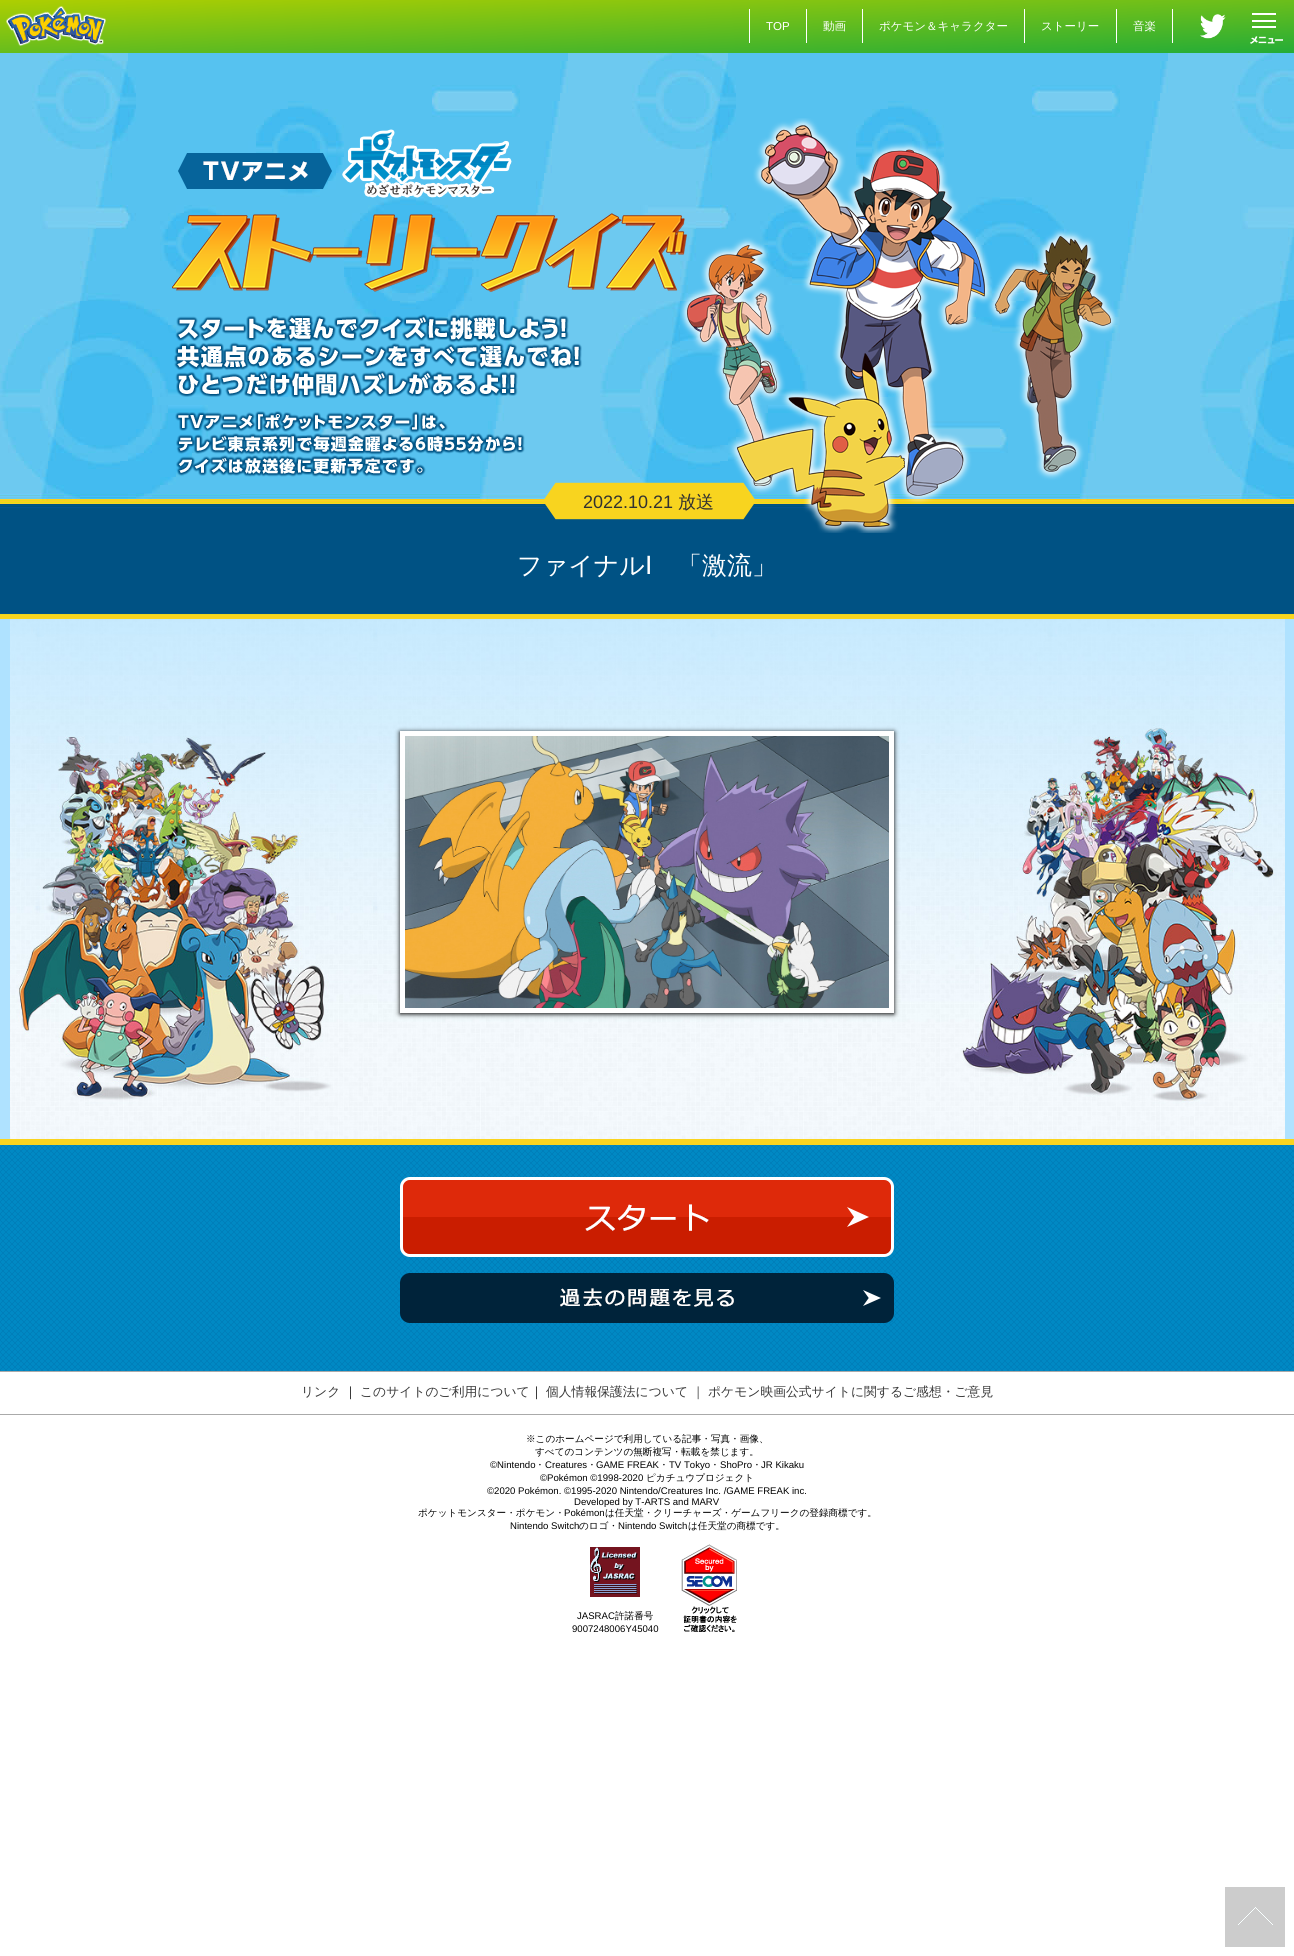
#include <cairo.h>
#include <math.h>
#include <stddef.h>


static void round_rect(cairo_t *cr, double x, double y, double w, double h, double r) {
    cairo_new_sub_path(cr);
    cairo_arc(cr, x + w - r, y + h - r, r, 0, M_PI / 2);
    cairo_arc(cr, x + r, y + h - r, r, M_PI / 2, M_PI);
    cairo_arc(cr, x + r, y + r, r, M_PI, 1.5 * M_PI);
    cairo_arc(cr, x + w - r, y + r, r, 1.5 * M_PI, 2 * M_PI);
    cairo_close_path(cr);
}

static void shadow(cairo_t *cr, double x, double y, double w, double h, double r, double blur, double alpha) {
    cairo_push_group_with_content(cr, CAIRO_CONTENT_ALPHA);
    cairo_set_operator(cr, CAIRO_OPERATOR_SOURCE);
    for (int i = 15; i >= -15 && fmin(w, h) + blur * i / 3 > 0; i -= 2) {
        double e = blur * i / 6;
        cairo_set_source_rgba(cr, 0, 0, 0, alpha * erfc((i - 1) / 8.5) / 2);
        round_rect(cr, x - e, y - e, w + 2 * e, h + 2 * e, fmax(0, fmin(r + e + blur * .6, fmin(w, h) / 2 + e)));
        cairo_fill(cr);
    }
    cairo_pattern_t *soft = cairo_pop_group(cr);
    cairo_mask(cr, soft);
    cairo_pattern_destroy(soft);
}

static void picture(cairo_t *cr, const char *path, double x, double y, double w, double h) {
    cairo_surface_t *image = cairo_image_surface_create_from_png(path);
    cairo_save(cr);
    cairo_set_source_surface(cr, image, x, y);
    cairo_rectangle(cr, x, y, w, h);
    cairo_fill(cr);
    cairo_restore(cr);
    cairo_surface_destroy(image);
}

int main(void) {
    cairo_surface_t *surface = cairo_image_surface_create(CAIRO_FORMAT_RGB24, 1294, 1956);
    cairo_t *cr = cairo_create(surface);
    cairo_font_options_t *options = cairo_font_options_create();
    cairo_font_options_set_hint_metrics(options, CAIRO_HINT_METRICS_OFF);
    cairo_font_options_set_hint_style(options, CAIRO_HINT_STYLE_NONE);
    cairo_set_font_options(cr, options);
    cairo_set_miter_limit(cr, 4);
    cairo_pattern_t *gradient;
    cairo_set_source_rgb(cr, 1, 1, 1);
    cairo_paint(cr);
    gradient = cairo_pattern_create_linear(645, -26, 649, 79);
    cairo_pattern_add_color_stop_rgba(gradient, 0, 0.69, 0.812, 0, 1);
    cairo_pattern_add_color_stop_rgba(gradient, 1, 0.133, 0.675, 0.22, 1);
    cairo_set_source(cr, gradient);
    cairo_pattern_destroy(gradient);
    cairo_rectangle(cr, 0, 0, 1294, 53);
    cairo_fill(cr);
    picture(cr, "img1.png", 6, 6, 100, 40);
    cairo_set_source_rgb(cr, 1, 1, 1);
    cairo_rectangle(cr, 749, 9, 1, 34);
    cairo_fill(cr);
    cairo_select_font_face(cr, "Liberation Sans", CAIRO_FONT_SLANT_NORMAL, CAIRO_FONT_WEIGHT_NORMAL);
    cairo_set_font_size(cr, 11.5);
    cairo_move_to(cr, 766, 30);
    cairo_show_text(cr, "TOP");
    cairo_rectangle(cr, 806, 9, 1, 34);
    cairo_fill(cr);
    cairo_select_font_face(cr, "WenQuanYi Zen Hei Medium", CAIRO_FONT_SLANT_NORMAL, CAIRO_FONT_WEIGHT_NORMAL);
    cairo_move_to(cr, 823, 30);
    cairo_show_text(cr, "動画");
    cairo_rectangle(cr, 862, 9, 1, 34);
    cairo_fill(cr);
    cairo_move_to(cr, 879, 30);
    cairo_show_text(cr, "ポケモン＆キャラクター");
    cairo_rectangle(cr, 1024, 9, 1, 34);
    cairo_fill(cr);
    cairo_move_to(cr, 1041, 30);
    cairo_show_text(cr, "ストーリー");
    cairo_rectangle(cr, 1116, 9, 1, 34);
    cairo_fill(cr);
    cairo_move_to(cr, 1133, 30);
    cairo_show_text(cr, "音楽");
    cairo_rectangle(cr, 1172, 9, 1, 34);
    cairo_fill(cr);
    picture(cr, "img2.png", 1200, 14, 26, 25);
    cairo_rectangle(cr, 1252, 13, 24, 2);
    cairo_fill(cr);
    cairo_rectangle(cr, 1252, 20, 24, 2);
    cairo_fill(cr);
    cairo_rectangle(cr, 1252, 26, 24, 2);
    cairo_fill(cr);
    picture(cr, "img3.png", 1250, 36, 33, 8);
    picture(cr, "img4.png", 0, 53, 1294, 566);
    picture(cr, "img5.png", 172, 118, 947, 415);
    cairo_select_font_face(cr, "Liberation Sans", CAIRO_FONT_SLANT_NORMAL, CAIRO_FONT_WEIGHT_NORMAL);
    cairo_set_font_size(cr, 18);
    cairo_set_source_rgb(cr, 0.192, 0.192, 0.192);
    cairo_move_to(cr, 583, 508);
    cairo_show_text(cr, "2022.10.21");
    cairo_select_font_face(cr, "WenQuanYi Zen Hei Medium", CAIRO_FONT_SLANT_NORMAL, CAIRO_FONT_WEIGHT_NORMAL);
    cairo_move_to(cr, 678, 508);
    cairo_show_text(cr, "放送");
    cairo_set_font_size(cr, 25);
    cairo_set_source_rgb(cr, 1, 1, 1);
    cairo_move_to(cr, 517, 574);
    cairo_show_text(cr, "ファイナル");
    cairo_select_font_face(cr, "DejaVu Sans", CAIRO_FONT_SLANT_NORMAL, CAIRO_FONT_WEIGHT_NORMAL);
    cairo_move_to(cr, 645, 574);
    cairo_show_text(cr, "Ⅰ");
    cairo_select_font_face(cr, "WenQuanYi Zen Hei Medium", CAIRO_FONT_SLANT_NORMAL, CAIRO_FONT_WEIGHT_NORMAL);
    cairo_move_to(cr, 677, 574);
    cairo_show_text(cr, "「激流」");
    cairo_set_source_rgb(cr, 0.686, 0.886, 1);
    cairo_rectangle(cr, 0, 619, 1294, 520);
    cairo_fill(cr);
    picture(cr, "img6.png", 10, 619, 1275, 520);
    cairo_set_source_rgb(cr, 0, 0, 0);
    shadow(cr, 400, 732, 494, 282, 0, 2.5, 1);
    cairo_rectangle(cr, 402.5, 733.5, 489, 277);
    cairo_set_source_rgb(cr, 1, 1, 1);
    cairo_set_line_width(cr, 5);
    cairo_stroke(cr);
    picture(cr, "img7.png", 405, 736, 484, 272);
    picture(cr, "img8.png", 0, 1145, 1294, 226);
    cairo_set_source_rgb(cr, 0.973, 0.831, 0.122);
    cairo_rectangle(cr, 0, 1139, 1294, 6);
    cairo_fill(cr);
    picture(cr, "img9.png", 400, 1177, 494, 80);
    picture(cr, "img10.png", 400, 1273, 494, 50);
    cairo_set_source_rgb(cr, 0.667, 0.667, 0.667);
    cairo_rectangle(cr, 0, 1371, 1294, 1);
    cairo_fill(cr);
    cairo_rectangle(cr, 0, 1414, 1294, 1);
    cairo_fill(cr);
    cairo_set_font_size(cr, 12.8);
    cairo_set_source_rgb(cr, 0.22, 0.22, 0.22);
    cairo_move_to(cr, 301, 1396);
    cairo_show_text(cr, "リンク");
    cairo_set_source_rgb(cr, 0, 0, 0);
    cairo_move_to(cr, 344, 1396);
    cairo_show_text(cr, "｜");
    cairo_set_source_rgb(cr, 0.22, 0.22, 0.22);
    cairo_move_to(cr, 360, 1396);
    cairo_show_text(cr, "このサイトのご利用について");
    cairo_set_source_rgb(cr, 0, 0, 0);
    cairo_move_to(cr, 530, 1396);
    cairo_show_text(cr, "｜");
    cairo_set_source_rgb(cr, 0.22, 0.22, 0.22);
    cairo_move_to(cr, 546, 1396);
    cairo_show_text(cr, "個人情報保護法について ｜");
    cairo_move_to(cr, 708, 1396);
    cairo_show_text(cr, "ポケモン映画公式サイトに関するご感想・ご意見");
    cairo_set_font_size(cr, 9.6);
    cairo_set_source_rgb(cr, 0, 0, 0);
    cairo_move_to(cr, 526, 1442);
    cairo_show_text(cr, "※このホームページで利用している記事・写真・画像、");
    cairo_move_to(cr, 535, 1455);
    cairo_show_text(cr, "すべてのコンテンツの無断複写・転載を禁じます。");
    cairo_select_font_face(cr, "Liberation Sans", CAIRO_FONT_SLANT_NORMAL, CAIRO_FONT_WEIGHT_NORMAL);
    cairo_move_to(cr, 490, 1468);
    cairo_show_text(cr, "©Nintendo");
    cairo_select_font_face(cr, "WenQuanYi Zen Hei Medium", CAIRO_FONT_SLANT_NORMAL, CAIRO_FONT_WEIGHT_NORMAL);
    cairo_move_to(cr, 535, 1468);
    cairo_show_text(cr, "・");
    cairo_select_font_face(cr, "Liberation Sans", CAIRO_FONT_SLANT_NORMAL, CAIRO_FONT_WEIGHT_NORMAL);
    cairo_move_to(cr, 545, 1468);
    cairo_show_text(cr, "Creatures");
    cairo_select_font_face(cr, "WenQuanYi Zen Hei Medium", CAIRO_FONT_SLANT_NORMAL, CAIRO_FONT_WEIGHT_NORMAL);
    cairo_move_to(cr, 587, 1468);
    cairo_show_text(cr, "・");
    cairo_select_font_face(cr, "Liberation Sans", CAIRO_FONT_SLANT_NORMAL, CAIRO_FONT_WEIGHT_NORMAL);
    cairo_move_to(cr, 596, 1468);
    cairo_show_text(cr, "GAME FREAK");
    cairo_select_font_face(cr, "WenQuanYi Zen Hei Medium", CAIRO_FONT_SLANT_NORMAL, CAIRO_FONT_WEIGHT_NORMAL);
    cairo_move_to(cr, 659, 1468);
    cairo_show_text(cr, "・");
    cairo_select_font_face(cr, "Liberation Sans", CAIRO_FONT_SLANT_NORMAL, CAIRO_FONT_WEIGHT_NORMAL);
    cairo_move_to(cr, 669, 1468);
    cairo_show_text(cr, "TV Tokyo");
    cairo_select_font_face(cr, "WenQuanYi Zen Hei Medium", CAIRO_FONT_SLANT_NORMAL, CAIRO_FONT_WEIGHT_NORMAL);
    cairo_move_to(cr, 710, 1468);
    cairo_show_text(cr, "・");
    cairo_select_font_face(cr, "Liberation Sans", CAIRO_FONT_SLANT_NORMAL, CAIRO_FONT_WEIGHT_NORMAL);
    cairo_move_to(cr, 720, 1468);
    cairo_show_text(cr, "ShoPro");
    cairo_select_font_face(cr, "WenQuanYi Zen Hei Medium", CAIRO_FONT_SLANT_NORMAL, CAIRO_FONT_WEIGHT_NORMAL);
    cairo_move_to(cr, 752, 1468);
    cairo_show_text(cr, "・");
    cairo_select_font_face(cr, "Liberation Sans", CAIRO_FONT_SLANT_NORMAL, CAIRO_FONT_WEIGHT_NORMAL);
    cairo_move_to(cr, 761, 1468);
    cairo_show_text(cr, "JR Kikaku");
    cairo_move_to(cr, 540, 1481);
    cairo_show_text(cr, "©Pokémon ©1998-2020");
    cairo_select_font_face(cr, "WenQuanYi Zen Hei Medium", CAIRO_FONT_SLANT_NORMAL, CAIRO_FONT_WEIGHT_NORMAL);
    cairo_move_to(cr, 646, 1481);
    cairo_show_text(cr, "ピカチュウプロジェクト");
    cairo_select_font_face(cr, "Liberation Sans", CAIRO_FONT_SLANT_NORMAL, CAIRO_FONT_WEIGHT_NORMAL);
    cairo_move_to(cr, 487, 1494);
    cairo_show_text(cr, "©2020 Pokémon. ©1995-2020 Nintendo/Creatures Inc. /GAME FREAK inc.");
    cairo_move_to(cr, 574, 1505);
    cairo_show_text(cr, "Developed by T-ARTS and MARV");
    cairo_select_font_face(cr, "WenQuanYi Zen Hei Medium", CAIRO_FONT_SLANT_NORMAL, CAIRO_FONT_WEIGHT_NORMAL);
    cairo_move_to(cr, 418, 1516);
    cairo_show_text(cr, "ポケットモンスター・ポケモン・");
    cairo_select_font_face(cr, "Liberation Sans", CAIRO_FONT_SLANT_NORMAL, CAIRO_FONT_WEIGHT_NORMAL);
    cairo_move_to(cr, 564, 1516);
    cairo_show_text(cr, "Pokémon");
    cairo_select_font_face(cr, "WenQuanYi Zen Hei Medium", CAIRO_FONT_SLANT_NORMAL, CAIRO_FONT_WEIGHT_NORMAL);
    cairo_move_to(cr, 605, 1516);
    cairo_show_text(cr, "は任天堂・クリーチャーズ・ゲームフリークの登録商標です。");
    cairo_select_font_face(cr, "Liberation Sans", CAIRO_FONT_SLANT_NORMAL, CAIRO_FONT_WEIGHT_NORMAL);
    cairo_move_to(cr, 510, 1529);
    cairo_show_text(cr, "Nintendo Switch");
    cairo_select_font_face(cr, "WenQuanYi Zen Hei Medium", CAIRO_FONT_SLANT_NORMAL, CAIRO_FONT_WEIGHT_NORMAL);
    cairo_move_to(cr, 579, 1529);
    cairo_show_text(cr, "のロゴ・");
    cairo_select_font_face(cr, "Liberation Sans", CAIRO_FONT_SLANT_NORMAL, CAIRO_FONT_WEIGHT_NORMAL);
    cairo_move_to(cr, 618, 1529);
    cairo_show_text(cr, "Nintendo Switch");
    cairo_select_font_face(cr, "WenQuanYi Zen Hei Medium", CAIRO_FONT_SLANT_NORMAL, CAIRO_FONT_WEIGHT_NORMAL);
    cairo_move_to(cr, 688, 1529);
    cairo_show_text(cr, "は任天堂の商標です。");
    picture(cr, "img11.png", 1225, 1887, 60, 60);
    picture(cr, "img12.png", 590, 1547, 50, 50);
    cairo_select_font_face(cr, "Liberation Sans", CAIRO_FONT_SLANT_NORMAL, CAIRO_FONT_WEIGHT_NORMAL);
    cairo_move_to(cr, 577, 1619);
    cairo_show_text(cr, "JASRAC");
    cairo_select_font_face(cr, "WenQuanYi Zen Hei Medium", CAIRO_FONT_SLANT_NORMAL, CAIRO_FONT_WEIGHT_NORMAL);
    cairo_move_to(cr, 615, 1619);
    cairo_show_text(cr, "許諾番号");
    cairo_select_font_face(cr, "Liberation Sans", CAIRO_FONT_SLANT_NORMAL, CAIRO_FONT_WEIGHT_NORMAL);
    cairo_move_to(cr, 572, 1632);
    cairo_show_text(cr, "9007248006Y45040");
    picture(cr, "img13.png", 681, 1544, 56, 88);
    cairo_surface_write_to_png(surface, "page.png");
    cairo_font_options_destroy(options);
    cairo_destroy(cr);
    cairo_surface_destroy(surface);
    return 0;
}
